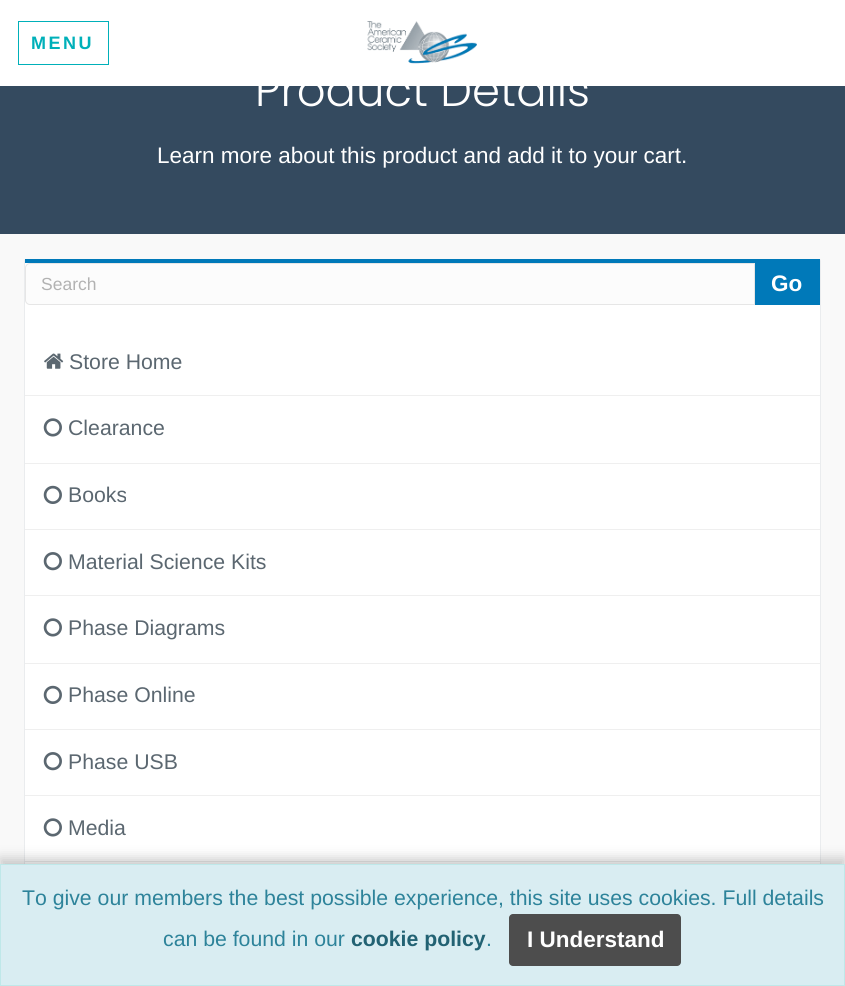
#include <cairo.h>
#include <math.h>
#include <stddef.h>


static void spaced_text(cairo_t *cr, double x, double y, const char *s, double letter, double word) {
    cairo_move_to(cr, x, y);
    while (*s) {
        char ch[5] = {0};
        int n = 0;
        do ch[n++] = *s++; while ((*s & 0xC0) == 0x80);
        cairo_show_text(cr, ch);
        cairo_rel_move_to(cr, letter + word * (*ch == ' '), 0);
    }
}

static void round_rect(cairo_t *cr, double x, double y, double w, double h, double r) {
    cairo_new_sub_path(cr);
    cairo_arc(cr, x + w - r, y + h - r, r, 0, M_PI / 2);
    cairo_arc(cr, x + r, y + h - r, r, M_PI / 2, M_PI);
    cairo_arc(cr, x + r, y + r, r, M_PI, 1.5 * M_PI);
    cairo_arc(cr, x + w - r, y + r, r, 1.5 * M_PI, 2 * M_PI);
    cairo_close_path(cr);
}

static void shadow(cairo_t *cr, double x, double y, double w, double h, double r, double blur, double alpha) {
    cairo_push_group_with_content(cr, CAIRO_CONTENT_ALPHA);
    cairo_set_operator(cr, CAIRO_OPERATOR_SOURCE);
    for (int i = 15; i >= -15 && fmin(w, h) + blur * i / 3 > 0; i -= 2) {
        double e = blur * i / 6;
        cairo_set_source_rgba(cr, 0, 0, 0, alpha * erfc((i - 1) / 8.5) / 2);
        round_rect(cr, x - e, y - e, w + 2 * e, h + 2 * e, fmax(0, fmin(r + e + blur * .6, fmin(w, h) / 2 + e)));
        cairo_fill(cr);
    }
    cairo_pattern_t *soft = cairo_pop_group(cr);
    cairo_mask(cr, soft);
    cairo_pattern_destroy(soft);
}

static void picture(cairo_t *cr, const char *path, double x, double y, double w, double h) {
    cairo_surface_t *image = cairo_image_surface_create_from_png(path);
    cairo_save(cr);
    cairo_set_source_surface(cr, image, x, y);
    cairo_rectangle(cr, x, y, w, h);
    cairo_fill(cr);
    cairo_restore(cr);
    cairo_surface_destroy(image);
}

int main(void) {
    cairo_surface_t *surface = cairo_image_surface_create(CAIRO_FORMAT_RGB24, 845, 986);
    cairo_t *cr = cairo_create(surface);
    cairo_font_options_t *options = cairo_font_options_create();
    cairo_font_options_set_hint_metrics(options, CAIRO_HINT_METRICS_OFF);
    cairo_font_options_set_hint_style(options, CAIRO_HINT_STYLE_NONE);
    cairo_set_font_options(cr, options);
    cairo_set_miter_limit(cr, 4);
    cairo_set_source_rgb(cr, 0.973, 0.973, 0.973);
    cairo_paint(cr);
    cairo_set_source_rgb(cr, 1, 1, 1);
    cairo_rectangle(cr, 0, 0, 845, 86);
    cairo_fill(cr);
    cairo_rectangle(cr, 18.5, 21.5, 90, 43);
    cairo_set_source_rgb(cr, 0, 0.69, 0.725);
    cairo_set_line_width(cr, 1);
    cairo_stroke(cr);
    cairo_select_font_face(cr, "Liberation Sans", CAIRO_FONT_SLANT_NORMAL, CAIRO_FONT_WEIGHT_BOLD);
    cairo_set_font_size(cr, 18);
    spaced_text(cr, 31, 49, "MENU", 2.5, 0);
    picture(cr, "img1.png", 367, 21, 110, 43);
    cairo_set_source_rgb(cr, 0.204, 0.29, 0.373);
    cairo_rectangle(cr, 0, 86, 845, 148);
    cairo_fill(cr);
    cairo_select_font_face(cr, "Poppins Light", CAIRO_FONT_SLANT_NORMAL, CAIRO_FONT_WEIGHT_NORMAL);
    cairo_set_font_size(cr, 45);
    cairo_set_source_rgb(cr, 1, 1, 1);
    cairo_move_to(cr, 255, 106);
    cairo_show_text(cr, "Product Details");
    cairo_select_font_face(cr, "Liberation Sans", CAIRO_FONT_SLANT_NORMAL, CAIRO_FONT_WEIGHT_NORMAL);
    cairo_set_font_size(cr, 22.5);
    cairo_move_to(cr, 157, 163);
    cairo_show_text(cr, "Learn more about this product and add it to your cart.");
    cairo_set_source_rgb(cr, 0.145, 0.22, 0.345);
    shadow(cr, 25, 260, 795, 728, 0, 0.5, 0.25);
    cairo_set_source_rgb(cr, 1, 1, 1);
    cairo_rectangle(cr, 25, 263, 795, 601);
    cairo_fill(cr);
    cairo_set_source_rgb(cr, 0, 0.475, 0.725);
    cairo_rectangle(cr, 25, 259, 795, 4);
    cairo_fill(cr);
    cairo_set_source_rgb(cr, 0.988, 0.988, 0.988);
    cairo_new_path(cr);
    cairo_move_to(cr, 30, 263.5);
    cairo_line_to(cr, 754.5, 263.5);
    cairo_line_to(cr, 754.5, 304.5);
    cairo_line_to(cr, 30, 304.5);
    cairo_curve_to(cr, 27.5, 304.5, 25.5, 302.5, 25.5, 300);
    cairo_line_to(cr, 25.5, 268);
    cairo_curve_to(cr, 25.5, 265.5, 27.5, 263.5, 30, 263.5);
    cairo_close_path(cr);
    cairo_fill_preserve(cr);
    cairo_set_source_rgb(cr, 0.902, 0.902, 0.902);
    cairo_stroke(cr);
    cairo_set_font_size(cr, 17.5);
    cairo_set_source_rgb(cr, 0.698, 0.698, 0.698);
    cairo_move_to(cr, 41, 290);
    cairo_show_text(cr, "Search");
    cairo_set_source_rgb(cr, 0, 0.475, 0.725);
    cairo_rectangle(cr, 755, 263, 65, 42);
    cairo_fill(cr);
    cairo_select_font_face(cr, "Liberation Sans", CAIRO_FONT_SLANT_NORMAL, CAIRO_FONT_WEIGHT_BOLD);
    cairo_set_font_size(cr, 22.5);
    cairo_set_source_rgb(cr, 1, 1, 1);
    cairo_move_to(cr, 771, 291);
    cairo_show_text(cr, "Go");
    cairo_set_source_rgb(cr, 0.937, 0.937, 0.937);
    cairo_rectangle(cr, 25, 395, 795, 1);
    cairo_fill(cr);
    picture(cr, "img2.png", 44, 353, 20, 16);
    cairo_select_font_face(cr, "Liberation Sans", CAIRO_FONT_SLANT_NORMAL, CAIRO_FONT_WEIGHT_NORMAL);
    cairo_set_font_size(cr, 21.25);
    cairo_set_source_rgb(cr, 0.357, 0.404, 0.439);
    cairo_move_to(cr, 69, 369);
    cairo_show_text(cr, "Store Home");
    cairo_set_source_rgb(cr, 0.937, 0.937, 0.937);
    cairo_rectangle(cr, 25, 463, 795, 1);
    cairo_fill(cr);
    picture(cr, "img3.png", 43, 418, 19, 19);
    cairo_set_source_rgb(cr, 0.357, 0.404, 0.439);
    cairo_move_to(cr, 68, 435);
    cairo_show_text(cr, "Clearance");
    cairo_set_source_rgb(cr, 0.937, 0.937, 0.937);
    cairo_rectangle(cr, 25, 529, 795, 1);
    cairo_fill(cr);
    picture(cr, "img4.png", 43, 485, 19, 19);
    cairo_set_source_rgb(cr, 0.357, 0.404, 0.439);
    cairo_move_to(cr, 68, 502);
    cairo_show_text(cr, "Books");
    cairo_set_source_rgb(cr, 0.937, 0.937, 0.937);
    cairo_rectangle(cr, 25, 595, 795, 1);
    cairo_fill(cr);
    picture(cr, "img5.png", 43, 552, 19, 19);
    cairo_set_source_rgb(cr, 0.357, 0.404, 0.439);
    cairo_move_to(cr, 68, 569);
    cairo_show_text(cr, "Material Science Kits");
    cairo_set_source_rgb(cr, 0.937, 0.937, 0.937);
    cairo_rectangle(cr, 25, 663, 795, 1);
    cairo_fill(cr);
    picture(cr, "img3.png", 43, 618, 19, 19);
    cairo_set_source_rgb(cr, 0.357, 0.404, 0.439);
    cairo_move_to(cr, 68, 635);
    cairo_show_text(cr, "Phase Diagrams");
    cairo_set_source_rgb(cr, 0.937, 0.937, 0.937);
    cairo_rectangle(cr, 25, 729, 795, 1);
    cairo_fill(cr);
    picture(cr, "img4.png", 43, 685, 19, 19);
    cairo_set_source_rgb(cr, 0.357, 0.404, 0.439);
    cairo_move_to(cr, 68, 702);
    cairo_show_text(cr, "Phase Online");
    cairo_set_source_rgb(cr, 0.937, 0.937, 0.937);
    cairo_rectangle(cr, 25, 795, 795, 1);
    cairo_fill(cr);
    picture(cr, "img5.png", 43, 752, 19, 19);
    cairo_set_source_rgb(cr, 0.357, 0.404, 0.439);
    cairo_move_to(cr, 68, 769);
    cairo_show_text(cr, "Phase USB");
    cairo_set_source_rgb(cr, 0.937, 0.937, 0.937);
    cairo_rectangle(cr, 25, 861, 795, 1);
    cairo_fill(cr);
    picture(cr, "img3.png", 43, 818, 19, 19);
    cairo_set_source_rgb(cr, 0.357, 0.404, 0.439);
    cairo_move_to(cr, 68, 835);
    cairo_show_text(cr, "Media");
    cairo_set_source_rgb(cr, 0, 0, 0);
    shadow(cr, 0, 858, 845, 122, 0, 6, 0.2);
    cairo_set_source_rgb(cr, 0.851, 0.929, 0.949);
    cairo_rectangle(cr, 0.5, 864.5, 844, 121);
    cairo_fill_preserve(cr);
    cairo_set_source_rgb(cr, 0.749, 0.91, 0.914);
    cairo_stroke(cr);
    cairo_set_source_rgb(cr, 0.176, 0.514, 0.604);
    cairo_move_to(cr, 22, 905);
    cairo_show_text(cr, "To give our members the best possible experience, this site uses cookies. Full details");
    cairo_move_to(cr, 163, 946);
    cairo_show_text(cr, "can be found in our");
    cairo_select_font_face(cr, "Liberation Sans", CAIRO_FONT_SLANT_NORMAL, CAIRO_FONT_WEIGHT_BOLD);
    cairo_set_source_rgb(cr, 0.133, 0.384, 0.451);
    cairo_move_to(cr, 351, 946);
    cairo_show_text(cr, "cookie policy");
    cairo_select_font_face(cr, "Liberation Sans", CAIRO_FONT_SLANT_NORMAL, CAIRO_FONT_WEIGHT_NORMAL);
    cairo_set_source_rgb(cr, 0.176, 0.514, 0.604);
    cairo_move_to(cr, 486, 946);
    cairo_show_text(cr, ".");
    cairo_set_source_rgb(cr, 0.302, 0.302, 0.302);
    round_rect(cr, 509, 914, 172, 52, 4);
    cairo_fill(cr);
    cairo_select_font_face(cr, "Liberation Sans", CAIRO_FONT_SLANT_NORMAL, CAIRO_FONT_WEIGHT_BOLD);
    cairo_set_font_size(cr, 22.5);
    cairo_set_source_rgb(cr, 1, 1, 1);
    cairo_move_to(cr, 527, 947);
    cairo_show_text(cr, "I Understand");
    cairo_surface_write_to_png(surface, "page.png");
    cairo_font_options_destroy(options);
    cairo_destroy(cr);
    cairo_surface_destroy(surface);
    return 0;
}
